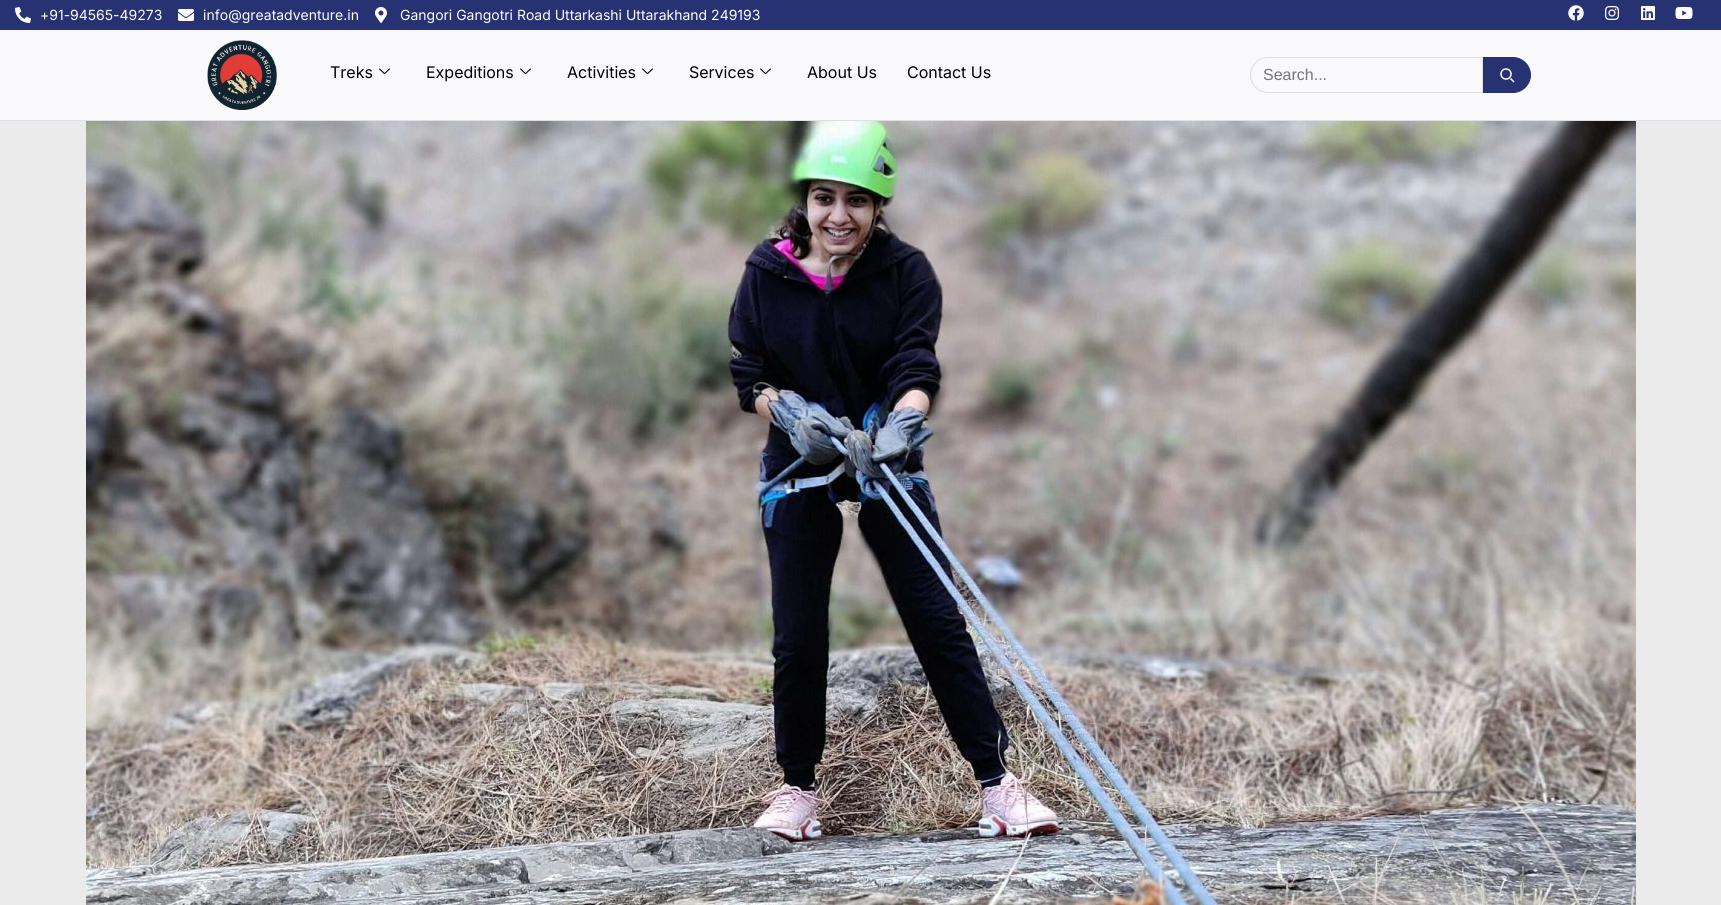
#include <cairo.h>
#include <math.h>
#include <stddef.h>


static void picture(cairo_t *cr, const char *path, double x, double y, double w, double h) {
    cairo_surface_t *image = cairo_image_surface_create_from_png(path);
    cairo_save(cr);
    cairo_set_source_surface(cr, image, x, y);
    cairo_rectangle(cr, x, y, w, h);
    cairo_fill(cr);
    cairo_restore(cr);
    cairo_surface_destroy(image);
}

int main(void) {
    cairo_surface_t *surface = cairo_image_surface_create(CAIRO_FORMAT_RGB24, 1721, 905);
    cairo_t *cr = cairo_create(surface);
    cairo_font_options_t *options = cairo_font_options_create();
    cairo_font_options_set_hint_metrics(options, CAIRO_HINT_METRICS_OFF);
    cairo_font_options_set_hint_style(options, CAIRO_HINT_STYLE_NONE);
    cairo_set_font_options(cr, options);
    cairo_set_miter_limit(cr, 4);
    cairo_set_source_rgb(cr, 0.925, 0.918, 0.918);
    cairo_paint(cr);
    cairo_set_source_rgb(cr, 0.973, 0.976, 0.988);
    cairo_rectangle(cr, 0, 30, 1721, 90);
    cairo_fill(cr);
    cairo_set_source_rgb(cr, 0.875, 0.878, 0.89);
    cairo_rectangle(cr, 0, 120, 1721, 1);
    cairo_fill(cr);
    cairo_set_source_rgb(cr, 0.153, 0.196, 0.447);
    cairo_rectangle(cr, 0, 0, 1721, 30);
    cairo_fill(cr);
    picture(cr, "img1.png", 15, 7, 16, 16);
    cairo_select_font_face(cr, "Inter", CAIRO_FONT_SLANT_NORMAL, CAIRO_FONT_WEIGHT_NORMAL);
    cairo_set_font_size(cr, 14);
    cairo_set_source_rgb(cr, 1, 1, 1);
    cairo_move_to(cr, 40, 20);
    cairo_show_text(cr, "+91-94565-49273");
    picture(cr, "img2.png", 178, 9, 16, 12);
    cairo_move_to(cr, 203, 20);
    cairo_show_text(cr, "info@greatadventure.in");
    picture(cr, "img3.png", 375, 7, 12, 16);
    cairo_move_to(cr, 400, 20);
    cairo_show_text(cr, "Gangori Gangotri Road Uttarkashi Uttarakhand 249193");
    picture(cr, "img4.png", 1568, 5, 16, 16);
    picture(cr, "img5.png", 1605, 6, 14, 14);
    picture(cr, "img6.png", 1641, 6, 14, 14);
    picture(cr, "img7.png", 1675, 7, 18, 12);
    picture(cr, "img8.png", 207, 40, 70, 70);
    cairo_set_font_size(cr, 16);
    cairo_set_source_rgb(cr, 0, 0, 0);
    cairo_move_to(cr, 330, 78);
    cairo_show_text(cr, "Treks");
    picture(cr, "img9.png", 379, 68, 11, 7);
    cairo_move_to(cr, 426, 78);
    cairo_show_text(cr, "Expeditions");
    picture(cr, "img9.png", 520, 68, 11, 7);
    cairo_move_to(cr, 567, 78);
    cairo_show_text(cr, "Activities");
    picture(cr, "img9.png", 642, 68, 11, 7);
    cairo_move_to(cr, 689, 78);
    cairo_show_text(cr, "Services");
    picture(cr, "img9.png", 760, 68, 11, 7);
    cairo_move_to(cr, 807, 78);
    cairo_show_text(cr, "About Us");
    cairo_move_to(cr, 907, 78);
    cairo_show_text(cr, "Contact Us");
    cairo_new_path(cr);
    cairo_move_to(cr, 1268, 57.5);
    cairo_line_to(cr, 1482.5, 57.5);
    cairo_line_to(cr, 1482.5, 92.5);
    cairo_line_to(cr, 1268, 92.5);
    cairo_curve_to(cr, 1258.5, 92.5, 1250.5, 84.5, 1250.5, 75);
    cairo_curve_to(cr, 1250.5, 65.5, 1258.5, 57.5, 1268, 57.5);
    cairo_close_path(cr);
    cairo_set_source_rgb(cr, 0.867, 0.867, 0.867);
    cairo_set_line_width(cr, 1);
    cairo_stroke(cr);
    cairo_select_font_face(cr, "Liberation Sans", CAIRO_FONT_SLANT_NORMAL, CAIRO_FONT_WEIGHT_NORMAL);
    cairo_set_source_rgb(cr, 0.459, 0.459, 0.459);
    cairo_move_to(cr, 1263, 80);
    cairo_show_text(cr, "Search...");
    cairo_set_source_rgb(cr, 0.153, 0.196, 0.447);
    cairo_new_path(cr);
    cairo_move_to(cr, 1483.5, 57.5);
    cairo_line_to(cr, 1513, 57.5);
    cairo_curve_to(cr, 1522.5, 57.5, 1530.5, 65.5, 1530.5, 75);
    cairo_curve_to(cr, 1530.5, 84.5, 1522.5, 92.5, 1513, 92.5);
    cairo_line_to(cr, 1483.5, 92.5);
    cairo_close_path(cr);
    cairo_fill_preserve(cr);
    cairo_stroke(cr);
    cairo_arc(cr, 1506, 74, 5, 0, 2 * M_PI);
    cairo_set_source_rgb(cr, 1, 1, 1);
    cairo_set_line_width(cr, 1.5);
    cairo_stroke(cr);
    cairo_new_path(cr);
    cairo_move_to(cr, 1514, 82);
    cairo_line_to(cr, 1510.5, 78.5);
    cairo_stroke(cr);
    picture(cr, "img10.png", 86, 121, 1550, 784);
    cairo_surface_write_to_png(surface, "page.png");
    cairo_font_options_destroy(options);
    cairo_destroy(cr);
    cairo_surface_destroy(surface);
    return 0;
}
